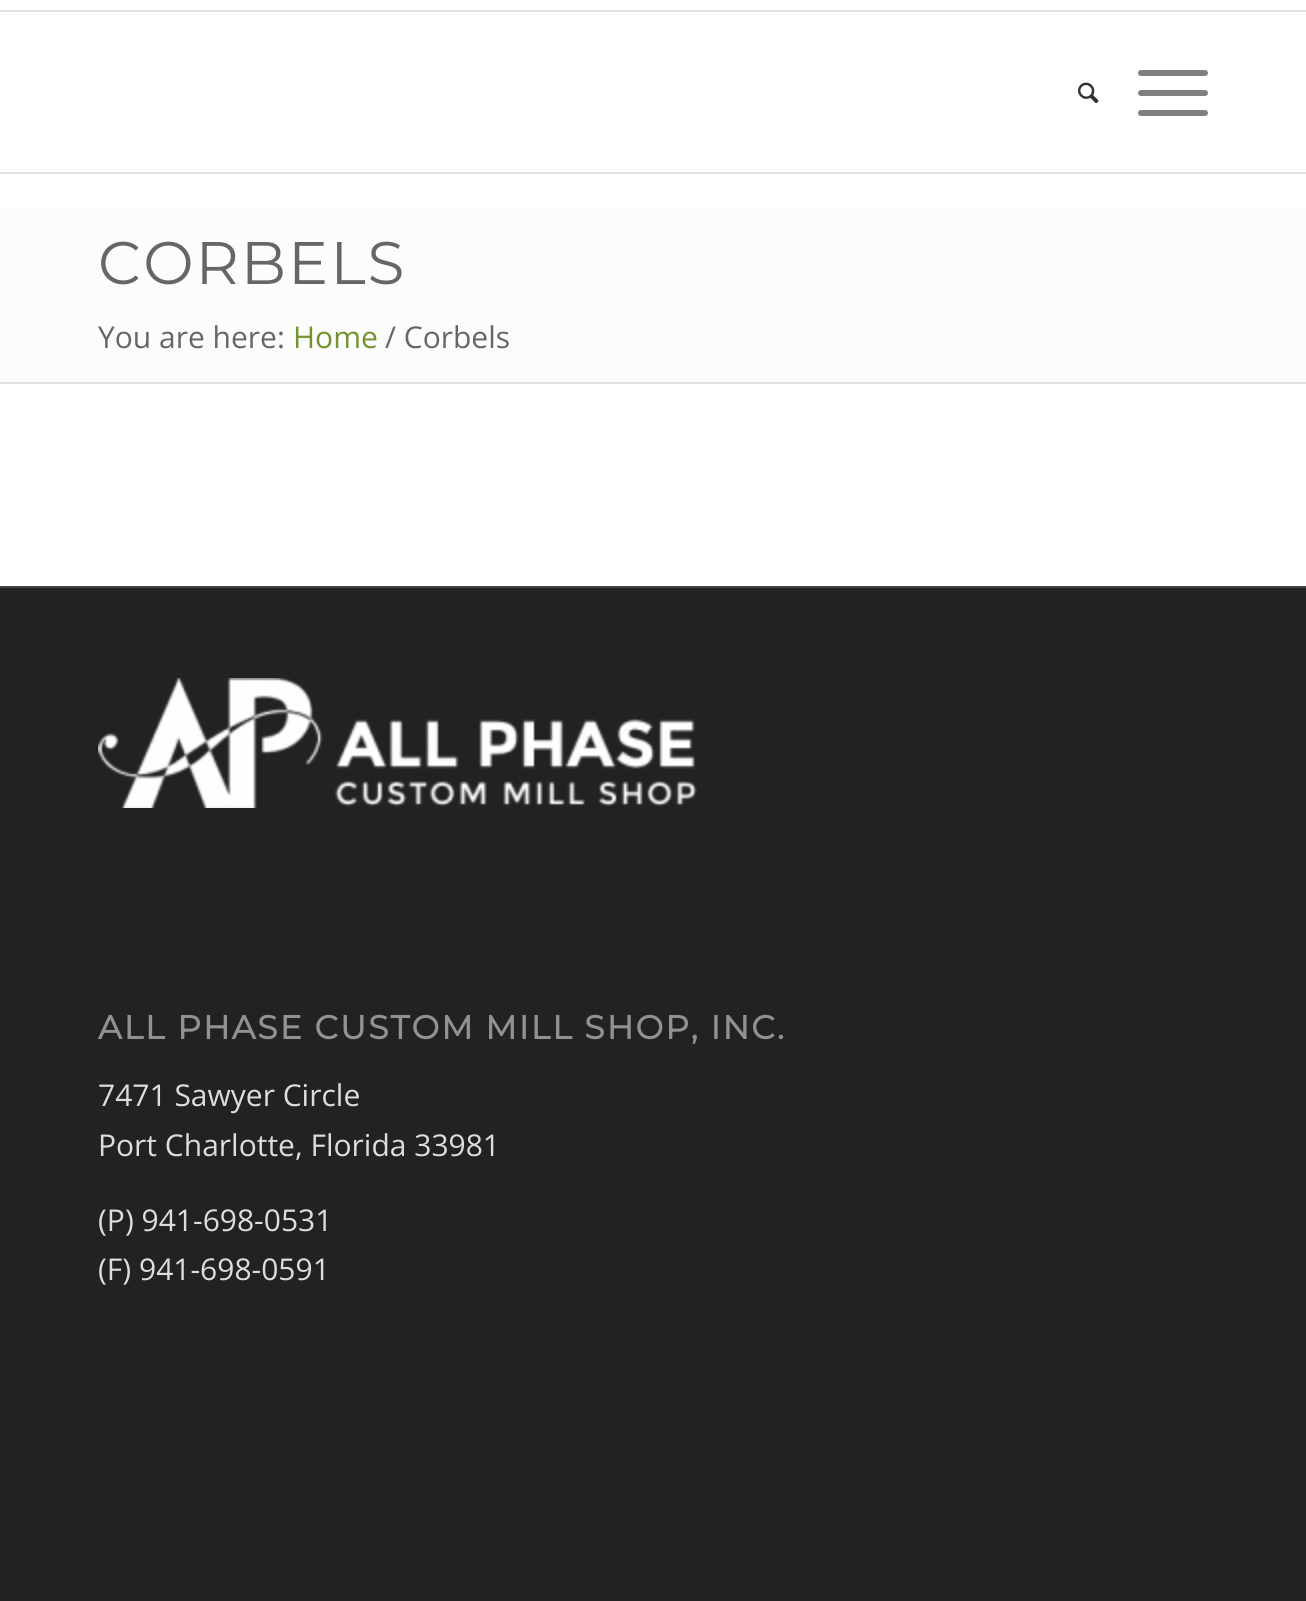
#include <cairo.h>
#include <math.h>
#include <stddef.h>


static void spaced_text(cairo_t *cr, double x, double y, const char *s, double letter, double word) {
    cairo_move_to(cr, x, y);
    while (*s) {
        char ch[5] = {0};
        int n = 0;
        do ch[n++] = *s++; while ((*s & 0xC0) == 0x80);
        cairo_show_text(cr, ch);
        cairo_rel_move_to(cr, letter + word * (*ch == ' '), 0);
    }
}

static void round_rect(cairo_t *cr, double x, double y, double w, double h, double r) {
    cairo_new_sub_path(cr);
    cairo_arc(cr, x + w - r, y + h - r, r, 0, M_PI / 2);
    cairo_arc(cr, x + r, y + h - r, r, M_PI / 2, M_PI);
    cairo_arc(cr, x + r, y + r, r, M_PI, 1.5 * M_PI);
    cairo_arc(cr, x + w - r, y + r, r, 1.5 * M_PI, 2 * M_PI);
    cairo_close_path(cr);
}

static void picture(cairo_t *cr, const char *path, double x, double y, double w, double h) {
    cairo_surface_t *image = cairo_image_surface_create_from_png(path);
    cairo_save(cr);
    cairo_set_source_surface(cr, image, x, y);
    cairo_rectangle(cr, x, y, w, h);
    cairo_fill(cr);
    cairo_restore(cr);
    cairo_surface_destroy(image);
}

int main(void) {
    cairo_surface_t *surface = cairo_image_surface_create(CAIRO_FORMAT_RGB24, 1306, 1601);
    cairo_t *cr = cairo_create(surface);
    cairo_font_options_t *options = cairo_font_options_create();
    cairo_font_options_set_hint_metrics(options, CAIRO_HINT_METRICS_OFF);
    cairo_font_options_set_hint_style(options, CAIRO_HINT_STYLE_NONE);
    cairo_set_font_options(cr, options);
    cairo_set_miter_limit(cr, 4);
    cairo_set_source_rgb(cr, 1, 1, 1);
    cairo_paint(cr);
    cairo_set_source_rgb(cr, 0.882, 0.882, 0.882);
    cairo_rectangle(cr, 0, 10, 1306, 2);
    cairo_fill(cr);
    cairo_rectangle(cr, 0, 172, 1306, 2);
    cairo_fill(cr);
    picture(cr, "img1.png", 1078, 82, 21, 22);
    cairo_set_source_rgb(cr, 0.502, 0.502, 0.502);
    round_rect(cr, 1138, 90, 70, 6, 3);
    cairo_fill(cr);
    round_rect(cr, 1138, 70, 70, 6, 3);
    cairo_fill(cr);
    round_rect(cr, 1138, 110, 70, 6, 3);
    cairo_fill(cr);
    cairo_set_source_rgb(cr, 0.988, 0.988, 0.988);
    cairo_rectangle(cr, 0, 208, 1306, 174);
    cairo_fill(cr);
    cairo_select_font_face(cr, "Montserrat Thin", CAIRO_FONT_SLANT_NORMAL, CAIRO_FONT_WEIGHT_NORMAL);
    cairo_set_font_size(cr, 60);
    cairo_set_source_rgb(cr, 0.4, 0.4, 0.4);
    spaced_text(cr, 98, 284, "CORBELS", 2, 0);
    cairo_select_font_face(cr, "Open Sans", CAIRO_FONT_SLANT_NORMAL, CAIRO_FONT_WEIGHT_NORMAL);
    cairo_set_font_size(cr, 30);
    cairo_move_to(cr, 98, 348);
    cairo_show_text(cr, "You are here:");
    cairo_set_source_rgb(cr, 0.443, 0.58, 0.188);
    cairo_move_to(cr, 293, 348);
    cairo_show_text(cr, "Home");
    cairo_set_source_rgb(cr, 0.4, 0.4, 0.4);
    cairo_move_to(cr, 385, 348);
    cairo_show_text(cr, "/ Corbels");
    cairo_set_source_rgb(cr, 0.882, 0.882, 0.882);
    cairo_rectangle(cr, 0, 382, 1306, 2);
    cairo_fill(cr);
    cairo_set_source_rgb(cr, 0.133, 0.133, 0.133);
    cairo_rectangle(cr, 0, 588, 1306, 1013);
    cairo_fill(cr);
    cairo_set_source_rgb(cr, 0.267, 0.267, 0.267);
    cairo_rectangle(cr, 0, 586, 1306, 2);
    cairo_fill(cr);
    picture(cr, "img2.png", 98, 678, 599, 130);
    cairo_select_font_face(cr, "Montserrat", CAIRO_FONT_SLANT_NORMAL, CAIRO_FONT_WEIGHT_BOLD);
    cairo_set_font_size(cr, 33);
    cairo_set_source_rgb(cr, 0.569, 0.569, 0.569);
    spaced_text(cr, 98, 1039, "ALL PHASE CUSTOM MILL SHOP, INC.", 2, 0);
    cairo_select_font_face(cr, "Open Sans", CAIRO_FONT_SLANT_NORMAL, CAIRO_FONT_WEIGHT_NORMAL);
    cairo_set_font_size(cr, 30);
    cairo_set_source_rgb(cr, 0.867, 0.867, 0.867);
    cairo_move_to(cr, 98, 1106);
    cairo_show_text(cr, "7471 Sawyer Circle");
    cairo_move_to(cr, 98, 1156);
    cairo_show_text(cr, "Port Charlotte, Florida 33981");
    cairo_move_to(cr, 98, 1231);
    cairo_show_text(cr, "(P) 941-698-0531");
    cairo_move_to(cr, 98, 1280);
    cairo_show_text(cr, "(F) 941-698-0591");
    cairo_surface_write_to_png(surface, "page.png");
    cairo_font_options_destroy(options);
    cairo_destroy(cr);
    cairo_surface_destroy(surface);
    return 0;
}
